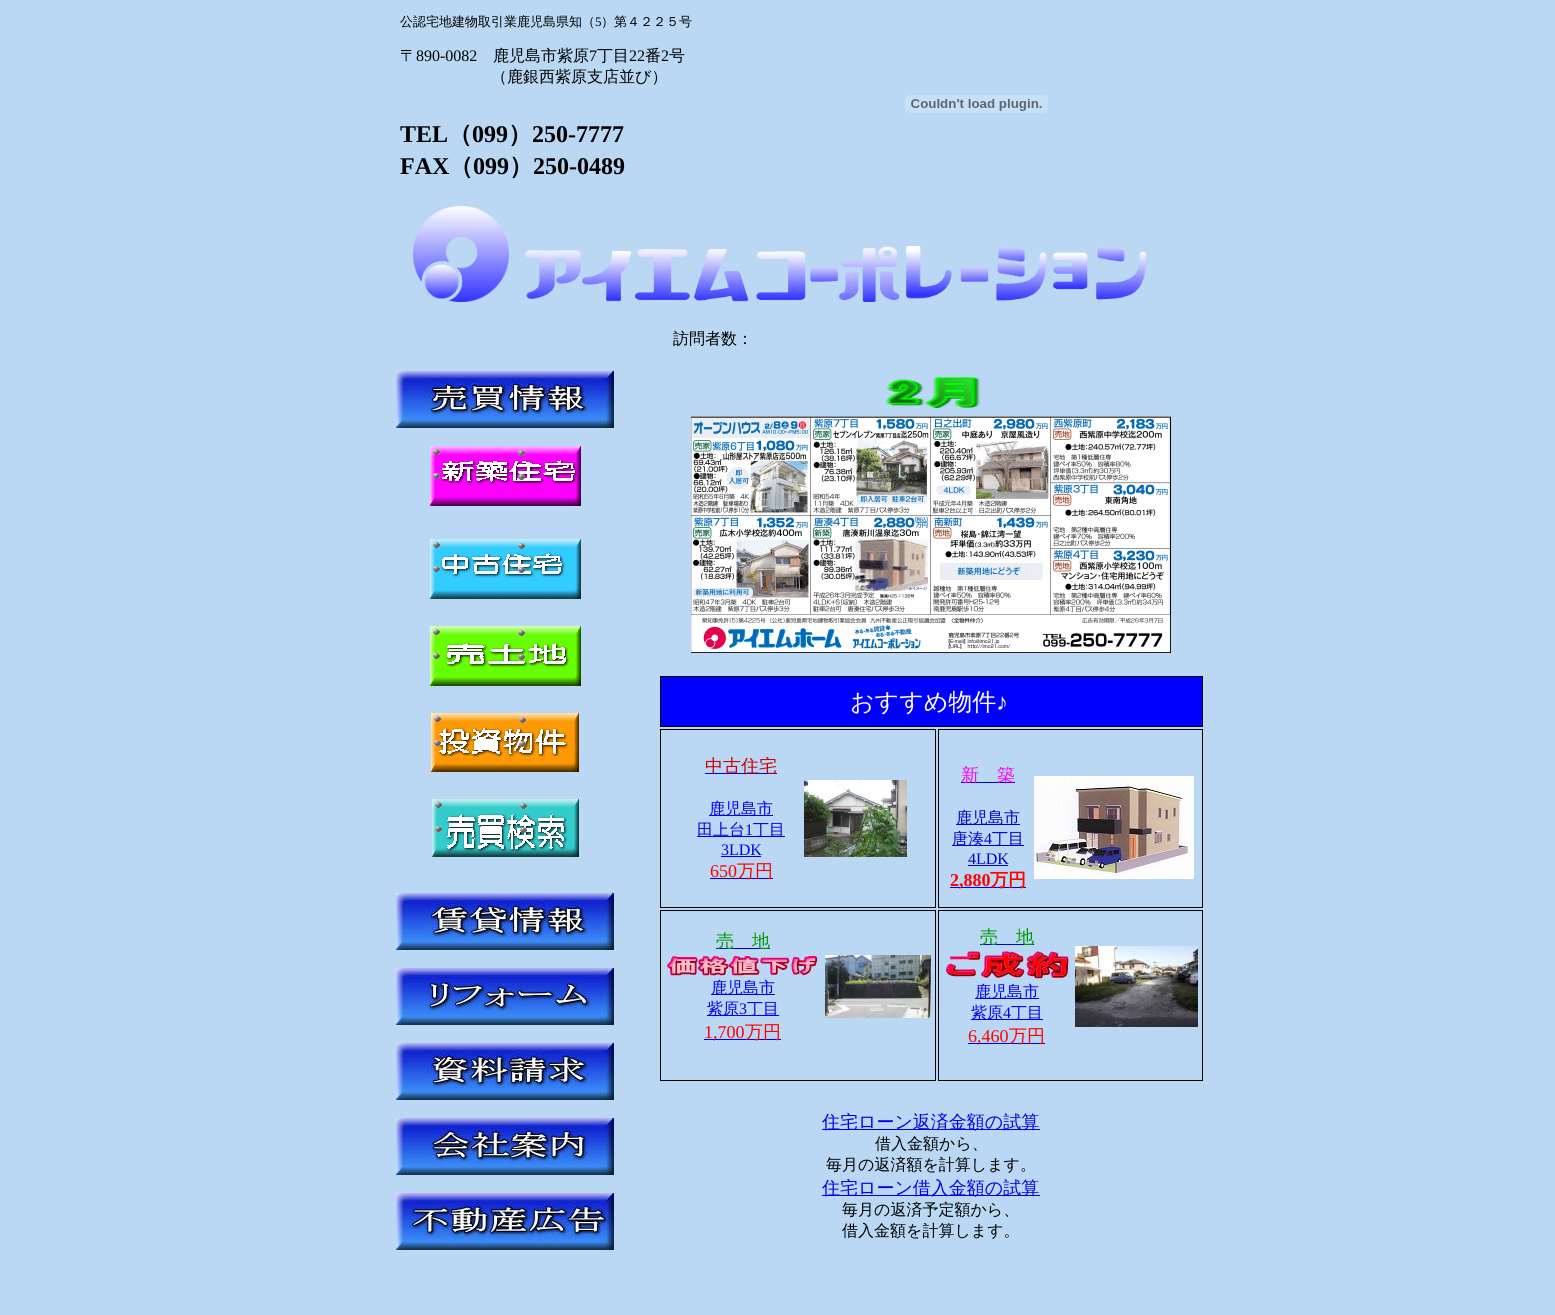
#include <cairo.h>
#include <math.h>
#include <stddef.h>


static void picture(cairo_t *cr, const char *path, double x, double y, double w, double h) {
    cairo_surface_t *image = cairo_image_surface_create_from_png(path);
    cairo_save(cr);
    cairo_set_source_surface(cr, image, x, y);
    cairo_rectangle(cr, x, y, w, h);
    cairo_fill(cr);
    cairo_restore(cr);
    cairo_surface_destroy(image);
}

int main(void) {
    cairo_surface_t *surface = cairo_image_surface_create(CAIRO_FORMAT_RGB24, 1555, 1315);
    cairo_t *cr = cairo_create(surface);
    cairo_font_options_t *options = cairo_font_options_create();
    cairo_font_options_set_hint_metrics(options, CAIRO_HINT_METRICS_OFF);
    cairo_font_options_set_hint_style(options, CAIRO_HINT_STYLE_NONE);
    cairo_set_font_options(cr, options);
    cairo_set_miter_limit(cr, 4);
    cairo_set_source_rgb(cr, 0.729, 0.847, 0.953);
    cairo_paint(cr);
    cairo_select_font_face(cr, "WenQuanYi Zen Hei Medium", CAIRO_FONT_SLANT_NORMAL, CAIRO_FONT_WEIGHT_NORMAL);
    cairo_set_font_size(cr, 13);
    cairo_set_source_rgb(cr, 0, 0, 0);
    cairo_move_to(cr, 400, 26);
    cairo_show_text(cr, "公認宅地建物取引業鹿児島県知（");
    cairo_select_font_face(cr, "Liberation Serif", CAIRO_FONT_SLANT_NORMAL, CAIRO_FONT_WEIGHT_NORMAL);
    cairo_move_to(cr, 595, 26);
    cairo_show_text(cr, "5");
    cairo_select_font_face(cr, "WenQuanYi Zen Hei Medium", CAIRO_FONT_SLANT_NORMAL, CAIRO_FONT_WEIGHT_NORMAL);
    cairo_move_to(cr, 601, 26);
    cairo_show_text(cr, "）第４２２５号");
    picture(cr, "img1.png", 905, 95, 143, 18);
    cairo_set_font_size(cr, 16);
    cairo_move_to(cr, 400, 61);
    cairo_show_text(cr, "〒");
    cairo_select_font_face(cr, "Liberation Serif", CAIRO_FONT_SLANT_NORMAL, CAIRO_FONT_WEIGHT_NORMAL);
    cairo_move_to(cr, 416, 61);
    cairo_show_text(cr, "890-0082");
    cairo_select_font_face(cr, "WenQuanYi Zen Hei Medium", CAIRO_FONT_SLANT_NORMAL, CAIRO_FONT_WEIGHT_NORMAL);
    cairo_move_to(cr, 493, 61);
    cairo_show_text(cr, "鹿児島市紫原");
    cairo_select_font_face(cr, "Liberation Serif", CAIRO_FONT_SLANT_NORMAL, CAIRO_FONT_WEIGHT_NORMAL);
    cairo_move_to(cr, 589, 61);
    cairo_show_text(cr, "7");
    cairo_select_font_face(cr, "WenQuanYi Zen Hei Medium", CAIRO_FONT_SLANT_NORMAL, CAIRO_FONT_WEIGHT_NORMAL);
    cairo_move_to(cr, 597, 61);
    cairo_show_text(cr, "丁目");
    cairo_select_font_face(cr, "Liberation Serif", CAIRO_FONT_SLANT_NORMAL, CAIRO_FONT_WEIGHT_NORMAL);
    cairo_move_to(cr, 629, 61);
    cairo_show_text(cr, "22");
    cairo_select_font_face(cr, "WenQuanYi Zen Hei Medium", CAIRO_FONT_SLANT_NORMAL, CAIRO_FONT_WEIGHT_NORMAL);
    cairo_move_to(cr, 645, 61);
    cairo_show_text(cr, "番");
    cairo_select_font_face(cr, "Liberation Serif", CAIRO_FONT_SLANT_NORMAL, CAIRO_FONT_WEIGHT_NORMAL);
    cairo_move_to(cr, 661, 61);
    cairo_show_text(cr, "2");
    cairo_select_font_face(cr, "WenQuanYi Zen Hei Medium", CAIRO_FONT_SLANT_NORMAL, CAIRO_FONT_WEIGHT_NORMAL);
    cairo_move_to(cr, 669, 61);
    cairo_show_text(cr, "号");
    cairo_move_to(cr, 491, 82);
    cairo_show_text(cr, "（鹿銀西紫原支店並び）");
    cairo_select_font_face(cr, "Liberation Serif", CAIRO_FONT_SLANT_NORMAL, CAIRO_FONT_WEIGHT_BOLD);
    cairo_set_font_size(cr, 24);
    cairo_move_to(cr, 400, 142);
    cairo_show_text(cr, "TEL");
    cairo_select_font_face(cr, "WenQuanYi Zen Hei", CAIRO_FONT_SLANT_NORMAL, CAIRO_FONT_WEIGHT_BOLD);
    cairo_move_to(cr, 448, 142);
    cairo_show_text(cr, "（");
    cairo_select_font_face(cr, "Liberation Serif", CAIRO_FONT_SLANT_NORMAL, CAIRO_FONT_WEIGHT_BOLD);
    cairo_move_to(cr, 472, 142);
    cairo_show_text(cr, "099");
    cairo_select_font_face(cr, "WenQuanYi Zen Hei", CAIRO_FONT_SLANT_NORMAL, CAIRO_FONT_WEIGHT_BOLD);
    cairo_move_to(cr, 508, 142);
    cairo_show_text(cr, "）");
    cairo_select_font_face(cr, "Liberation Serif", CAIRO_FONT_SLANT_NORMAL, CAIRO_FONT_WEIGHT_BOLD);
    cairo_move_to(cr, 532, 142);
    cairo_show_text(cr, "250-7777");
    cairo_move_to(cr, 400, 174);
    cairo_show_text(cr, "FAX");
    cairo_select_font_face(cr, "WenQuanYi Zen Hei", CAIRO_FONT_SLANT_NORMAL, CAIRO_FONT_WEIGHT_BOLD);
    cairo_move_to(cr, 449, 174);
    cairo_show_text(cr, "（");
    cairo_select_font_face(cr, "Liberation Serif", CAIRO_FONT_SLANT_NORMAL, CAIRO_FONT_WEIGHT_BOLD);
    cairo_move_to(cr, 473, 174);
    cairo_show_text(cr, "099");
    cairo_select_font_face(cr, "WenQuanYi Zen Hei", CAIRO_FONT_SLANT_NORMAL, CAIRO_FONT_WEIGHT_BOLD);
    cairo_move_to(cr, 509, 174);
    cairo_show_text(cr, "）");
    cairo_select_font_face(cr, "Liberation Serif", CAIRO_FONT_SLANT_NORMAL, CAIRO_FONT_WEIGHT_BOLD);
    cairo_move_to(cr, 533, 174);
    cairo_show_text(cr, "250-0489");
    picture(cr, "img2.png", 413, 206, 96, 96);
    picture(cr, "img3.png", 525, 246, 621, 56);
    cairo_select_font_face(cr, "WenQuanYi Zen Hei Medium", CAIRO_FONT_SLANT_NORMAL, CAIRO_FONT_WEIGHT_NORMAL);
    cairo_set_font_size(cr, 16);
    cairo_move_to(cr, 673, 344);
    cairo_show_text(cr, "訪問者数：");
    picture(cr, "img4.png", 396, 371, 218, 57);
    picture(cr, "img5.png", 430, 446, 151, 60);
    picture(cr, "img6.png", 430, 539, 151, 60);
    picture(cr, "img7.png", 430, 626, 151, 60);
    picture(cr, "img8.png", 431, 713, 148, 59);
    picture(cr, "img9.png", 432, 799, 147, 58);
    picture(cr, "img10.png", 396, 893, 218, 57);
    picture(cr, "img11.png", 396, 968, 218, 57);
    picture(cr, "img12.png", 396, 1043, 218, 57);
    picture(cr, "img13.png", 396, 1118, 218, 57);
    picture(cr, "img14.png", 396, 1193, 218, 57);
    picture(cr, "img15.png", 885, 376, 96, 33);
    picture(cr, "img16.png", 691, 416, 480, 237);
    cairo_set_source_rgb(cr, 0, 0, 1);
    cairo_rectangle(cr, 660.5, 676.5, 542, 50);
    cairo_fill_preserve(cr);
    cairo_set_source_rgb(cr, 0, 0, 0);
    cairo_set_line_width(cr, 1);
    cairo_stroke(cr);
    cairo_set_font_size(cr, 24);
    cairo_set_source_rgb(cr, 1, 1, 1);
    cairo_move_to(cr, 850, 710);
    cairo_show_text(cr, "おすすめ物件");
    cairo_select_font_face(cr, "Liberation Serif", CAIRO_FONT_SLANT_NORMAL, CAIRO_FONT_WEIGHT_NORMAL);
    cairo_move_to(cr, 996, 710);
    cairo_show_text(cr, "♪");
    cairo_rectangle(cr, 660.5, 729.5, 275, 178);
    cairo_set_source_rgb(cr, 0, 0, 0);
    cairo_stroke(cr);
    cairo_set_source_rgb(cr, 0, 0, 0.933);
    cairo_rectangle(cr, 705, 773, 72, 1);
    cairo_fill(cr);
    cairo_select_font_face(cr, "WenQuanYi Zen Hei Medium", CAIRO_FONT_SLANT_NORMAL, CAIRO_FONT_WEIGHT_NORMAL);
    cairo_set_font_size(cr, 18);
    cairo_set_source_rgb(cr, 0.8, 0, 0);
    cairo_move_to(cr, 705, 772);
    cairo_show_text(cr, "中古住宅");
    cairo_set_source_rgb(cr, 0, 0, 0.933);
    cairo_rectangle(cr, 709, 815, 64, 1);
    cairo_fill(cr);
    cairo_set_font_size(cr, 16);
    cairo_move_to(cr, 709, 814);
    cairo_show_text(cr, "鹿児島市");
    cairo_rectangle(cr, 697, 836, 88, 1);
    cairo_fill(cr);
    cairo_move_to(cr, 697, 835);
    cairo_show_text(cr, "田上台");
    cairo_select_font_face(cr, "Liberation Serif", CAIRO_FONT_SLANT_NORMAL, CAIRO_FONT_WEIGHT_NORMAL);
    cairo_move_to(cr, 745, 835);
    cairo_show_text(cr, "1");
    cairo_select_font_face(cr, "WenQuanYi Zen Hei Medium", CAIRO_FONT_SLANT_NORMAL, CAIRO_FONT_WEIGHT_NORMAL);
    cairo_move_to(cr, 753, 835);
    cairo_show_text(cr, "丁目");
    cairo_select_font_face(cr, "Liberation Serif", CAIRO_FONT_SLANT_NORMAL, CAIRO_FONT_WEIGHT_NORMAL);
    cairo_move_to(cr, 721, 855);
    cairo_show_text(cr, "3LDK");
    cairo_rectangle(cr, 721, 856, 40, 1);
    cairo_fill(cr);
    cairo_set_font_size(cr, 18);
    cairo_set_source_rgb(cr, 1, 0, 0);
    cairo_move_to(cr, 710, 877);
    cairo_show_text(cr, "650");
    cairo_set_source_rgb(cr, 0, 0, 0.933);
    cairo_rectangle(cr, 710, 878, 63, 1);
    cairo_fill(cr);
    cairo_select_font_face(cr, "WenQuanYi Zen Hei Medium", CAIRO_FONT_SLANT_NORMAL, CAIRO_FONT_WEIGHT_NORMAL);
    cairo_set_source_rgb(cr, 1, 0, 0);
    cairo_move_to(cr, 737, 877);
    cairo_show_text(cr, "万円");
    picture(cr, "img17.png", 804, 780, 103, 77);
    cairo_rectangle(cr, 938.5, 729.5, 264, 178);
    cairo_set_source_rgb(cr, 0, 0, 0);
    cairo_stroke(cr);
    cairo_set_source_rgb(cr, 0, 0, 0.933);
    cairo_rectangle(cr, 961, 782, 54, 1);
    cairo_fill(cr);
    cairo_set_source_rgb(cr, 1, 0, 1);
    cairo_move_to(cr, 961, 781);
    cairo_show_text(cr, "新　築");
    cairo_set_source_rgb(cr, 0, 0, 0.933);
    cairo_rectangle(cr, 956, 824, 64, 1);
    cairo_fill(cr);
    cairo_set_font_size(cr, 16);
    cairo_set_source_rgb(cr, 0, 0, 0.8);
    cairo_move_to(cr, 956, 823);
    cairo_show_text(cr, "鹿児島市");
    cairo_set_source_rgb(cr, 0, 0, 0.933);
    cairo_rectangle(cr, 952, 845, 72, 1);
    cairo_fill(cr);
    cairo_set_source_rgb(cr, 0, 0, 0.8);
    cairo_move_to(cr, 952, 844);
    cairo_show_text(cr, "唐湊");
    cairo_select_font_face(cr, "Liberation Serif", CAIRO_FONT_SLANT_NORMAL, CAIRO_FONT_WEIGHT_NORMAL);
    cairo_move_to(cr, 984, 844);
    cairo_show_text(cr, "4");
    cairo_select_font_face(cr, "WenQuanYi Zen Hei Medium", CAIRO_FONT_SLANT_NORMAL, CAIRO_FONT_WEIGHT_NORMAL);
    cairo_move_to(cr, 992, 844);
    cairo_show_text(cr, "丁目");
    cairo_select_font_face(cr, "Liberation Serif", CAIRO_FONT_SLANT_NORMAL, CAIRO_FONT_WEIGHT_NORMAL);
    cairo_move_to(cr, 968, 864);
    cairo_show_text(cr, "4LDK");
    cairo_set_source_rgb(cr, 0, 0, 0.933);
    cairo_rectangle(cr, 968, 865, 40, 1);
    cairo_fill(cr);
    cairo_rectangle(cr, 950, 887, 76, 1);
    cairo_fill(cr);
    cairo_select_font_face(cr, "Liberation Serif", CAIRO_FONT_SLANT_NORMAL, CAIRO_FONT_WEIGHT_BOLD);
    cairo_set_font_size(cr, 18);
    cairo_set_source_rgb(cr, 1, 0, 0);
    cairo_move_to(cr, 950, 886);
    cairo_show_text(cr, "2,880");
    cairo_select_font_face(cr, "WenQuanYi Zen Hei", CAIRO_FONT_SLANT_NORMAL, CAIRO_FONT_WEIGHT_BOLD);
    cairo_move_to(cr, 990, 886);
    cairo_show_text(cr, "万円");
    picture(cr, "img18.png", 1034, 776, 160, 103);
    cairo_rectangle(cr, 660.5, 910.5, 275, 170);
    cairo_set_source_rgb(cr, 0, 0, 0);
    cairo_stroke(cr);
    cairo_set_source_rgb(cr, 0, 0, 0.933);
    cairo_rectangle(cr, 716, 948, 54, 1);
    cairo_fill(cr);
    cairo_select_font_face(cr, "WenQuanYi Zen Hei Medium", CAIRO_FONT_SLANT_NORMAL, CAIRO_FONT_WEIGHT_NORMAL);
    cairo_set_source_rgb(cr, 0, 0.6, 0);
    cairo_move_to(cr, 716, 947);
    cairo_show_text(cr, "売　地");
    picture(cr, "img19.png", 667, 956, 151, 20);
    cairo_set_source_rgb(cr, 0, 0, 0.933);
    cairo_rectangle(cr, 711, 994, 64, 1);
    cairo_fill(cr);
    cairo_set_font_size(cr, 16);
    cairo_move_to(cr, 711, 993);
    cairo_show_text(cr, "鹿児島市");
    cairo_rectangle(cr, 707, 1015, 72, 1);
    cairo_fill(cr);
    cairo_move_to(cr, 707, 1014);
    cairo_show_text(cr, "紫原");
    cairo_select_font_face(cr, "Liberation Serif", CAIRO_FONT_SLANT_NORMAL, CAIRO_FONT_WEIGHT_NORMAL);
    cairo_move_to(cr, 739, 1014);
    cairo_show_text(cr, "3");
    cairo_select_font_face(cr, "WenQuanYi Zen Hei Medium", CAIRO_FONT_SLANT_NORMAL, CAIRO_FONT_WEIGHT_NORMAL);
    cairo_move_to(cr, 747, 1014);
    cairo_show_text(cr, "丁目");
    cairo_rectangle(cr, 704, 1039, 77, 1);
    cairo_fill(cr);
    cairo_select_font_face(cr, "Liberation Serif", CAIRO_FONT_SLANT_NORMAL, CAIRO_FONT_WEIGHT_NORMAL);
    cairo_set_font_size(cr, 18);
    cairo_set_source_rgb(cr, 1, 0, 0);
    cairo_move_to(cr, 704, 1038);
    cairo_show_text(cr, "1,700");
    cairo_select_font_face(cr, "WenQuanYi Zen Hei Medium", CAIRO_FONT_SLANT_NORMAL, CAIRO_FONT_WEIGHT_NORMAL);
    cairo_move_to(cr, 745, 1038);
    cairo_show_text(cr, "万円");
    picture(cr, "img20.png", 825, 955, 106, 63);
    cairo_rectangle(cr, 938.5, 910.5, 264, 170);
    cairo_set_source_rgb(cr, 0, 0, 0);
    cairo_stroke(cr);
    cairo_set_source_rgb(cr, 0, 0, 0.933);
    cairo_rectangle(cr, 980, 944, 54, 1);
    cairo_fill(cr);
    cairo_set_source_rgb(cr, 0, 0.6, 0);
    cairo_move_to(cr, 980, 943);
    cairo_show_text(cr, "売　地");
    picture(cr, "img21.png", 946, 951, 123, 28);
    cairo_set_source_rgb(cr, 0, 0, 0.933);
    cairo_rectangle(cr, 975, 998, 64, 1);
    cairo_fill(cr);
    cairo_set_font_size(cr, 16);
    cairo_move_to(cr, 975, 997);
    cairo_show_text(cr, "鹿児島市");
    cairo_rectangle(cr, 971, 1019, 72, 1);
    cairo_fill(cr);
    cairo_move_to(cr, 971, 1018);
    cairo_show_text(cr, "紫原");
    cairo_select_font_face(cr, "Liberation Serif", CAIRO_FONT_SLANT_NORMAL, CAIRO_FONT_WEIGHT_NORMAL);
    cairo_move_to(cr, 1003, 1018);
    cairo_show_text(cr, "4");
    cairo_select_font_face(cr, "WenQuanYi Zen Hei Medium", CAIRO_FONT_SLANT_NORMAL, CAIRO_FONT_WEIGHT_NORMAL);
    cairo_move_to(cr, 1011, 1018);
    cairo_show_text(cr, "丁目");
    cairo_rectangle(cr, 968, 1043, 77, 1);
    cairo_fill(cr);
    cairo_select_font_face(cr, "Liberation Serif", CAIRO_FONT_SLANT_NORMAL, CAIRO_FONT_WEIGHT_NORMAL);
    cairo_set_font_size(cr, 18);
    cairo_set_source_rgb(cr, 1, 0, 0);
    cairo_move_to(cr, 968, 1042);
    cairo_show_text(cr, "6,460");
    cairo_select_font_face(cr, "WenQuanYi Zen Hei Medium", CAIRO_FONT_SLANT_NORMAL, CAIRO_FONT_WEIGHT_NORMAL);
    cairo_move_to(cr, 1009, 1042);
    cairo_show_text(cr, "万円");
    picture(cr, "img22.png", 1075, 946, 123, 81);
    cairo_set_source_rgb(cr, 0, 0, 0.933);
    cairo_rectangle(cr, 822, 1129, 218, 1);
    cairo_fill(cr);
    cairo_move_to(cr, 822, 1128);
    cairo_show_text(cr, "住宅ローン返済金額の試算");
    cairo_set_font_size(cr, 16);
    cairo_set_source_rgb(cr, 0, 0, 0);
    cairo_move_to(cr, 875, 1149);
    cairo_show_text(cr, "借入金額から、");
    cairo_move_to(cr, 826, 1170);
    cairo_show_text(cr, "毎月の返済額を計算します。");
    cairo_set_source_rgb(cr, 0, 0, 0.933);
    cairo_rectangle(cr, 822, 1195, 218, 1);
    cairo_fill(cr);
    cairo_set_font_size(cr, 18);
    cairo_move_to(cr, 822, 1194);
    cairo_show_text(cr, "住宅ローン借入金額の試算");
    cairo_set_font_size(cr, 16);
    cairo_set_source_rgb(cr, 0, 0, 0);
    cairo_move_to(cr, 842, 1215);
    cairo_show_text(cr, "毎月の返済予定額から、");
    cairo_move_to(cr, 842, 1236);
    cairo_show_text(cr, "借入金額を計算します。");
    cairo_surface_write_to_png(surface, "page.png");
    cairo_font_options_destroy(options);
    cairo_destroy(cr);
    cairo_surface_destroy(surface);
    return 0;
}
